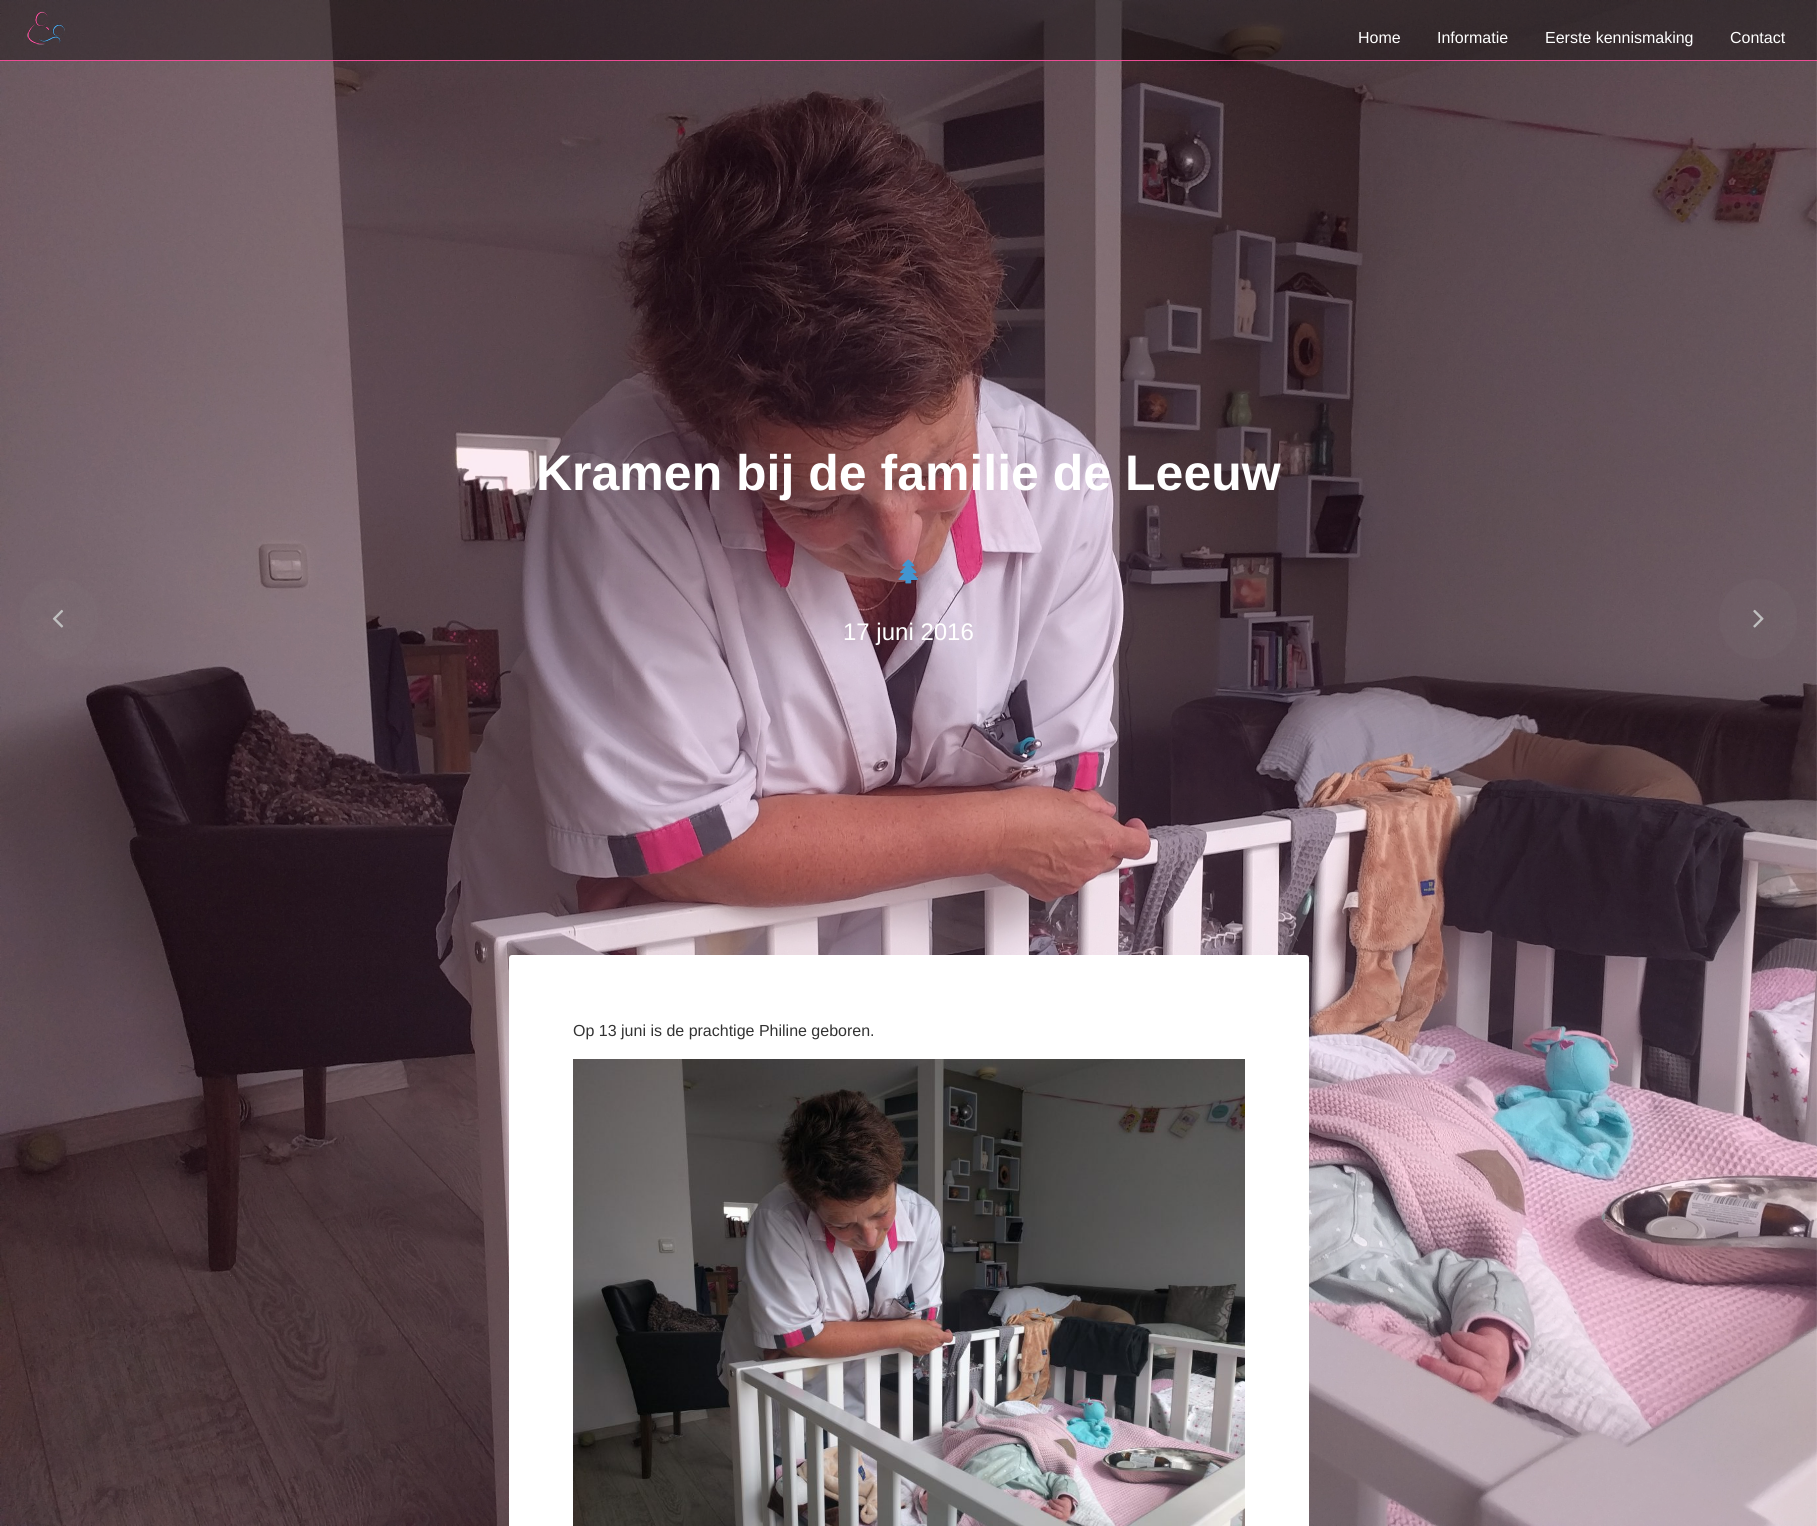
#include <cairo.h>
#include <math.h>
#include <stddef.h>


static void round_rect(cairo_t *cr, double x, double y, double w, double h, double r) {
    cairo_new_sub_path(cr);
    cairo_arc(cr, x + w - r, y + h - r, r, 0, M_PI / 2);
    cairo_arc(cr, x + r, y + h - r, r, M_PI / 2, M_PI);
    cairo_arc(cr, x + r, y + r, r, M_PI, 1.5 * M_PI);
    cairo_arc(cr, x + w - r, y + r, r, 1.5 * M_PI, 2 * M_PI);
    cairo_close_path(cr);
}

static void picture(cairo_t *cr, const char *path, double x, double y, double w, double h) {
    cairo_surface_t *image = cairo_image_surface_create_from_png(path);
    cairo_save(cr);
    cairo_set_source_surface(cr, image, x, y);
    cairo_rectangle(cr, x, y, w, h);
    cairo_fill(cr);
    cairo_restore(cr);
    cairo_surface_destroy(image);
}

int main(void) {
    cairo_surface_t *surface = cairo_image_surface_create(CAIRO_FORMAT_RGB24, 1817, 1526);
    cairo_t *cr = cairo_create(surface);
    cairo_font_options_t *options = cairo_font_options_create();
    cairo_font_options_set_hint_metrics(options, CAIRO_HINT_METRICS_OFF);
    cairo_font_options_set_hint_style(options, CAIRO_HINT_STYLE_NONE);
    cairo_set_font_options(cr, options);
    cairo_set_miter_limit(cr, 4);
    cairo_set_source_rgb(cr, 1, 1, 1);
    cairo_paint(cr);
    picture(cr, "img2.png", 0, 0, 1817, 1526);
    cairo_set_source_rgba(cr, 0, 0, 0, 0.38);
    cairo_rectangle(cr, 0, 0, 1817, 60);
    cairo_fill(cr);
    cairo_set_source_rgb(cr, 0.933, 0.298, 0.584);
    cairo_rectangle(cr, 0, 60, 1817, 1);
    cairo_fill(cr);
    picture(cr, "img1.png", 27, 11, 38, 34);
    cairo_select_font_face(cr, "Liberation Sans", CAIRO_FONT_SLANT_NORMAL, CAIRO_FONT_WEIGHT_NORMAL);
    cairo_set_font_size(cr, 16);
    cairo_set_source_rgb(cr, 1, 1, 1);
    cairo_move_to(cr, 1358, 43);
    cairo_show_text(cr, "Home");
    cairo_move_to(cr, 1437, 43);
    cairo_show_text(cr, "Informatie");
    cairo_move_to(cr, 1545, 43);
    cairo_show_text(cr, "Eerste kennismaking");
    cairo_move_to(cr, 1730, 43);
    cairo_show_text(cr, "Contact");
    cairo_select_font_face(cr, "Liberation Sans", CAIRO_FONT_SLANT_NORMAL, CAIRO_FONT_WEIGHT_BOLD);
    cairo_set_font_size(cr, 50);
    cairo_move_to(cr, 536, 490);
    cairo_show_text(cr, "Kramen bij de familie de Leeuw");
    picture(cr, "img3.png", 898, 559, 20, 25);
    cairo_select_font_face(cr, "Liberation Sans", CAIRO_FONT_SLANT_NORMAL, CAIRO_FONT_WEIGHT_NORMAL);
    cairo_set_font_size(cr, 24);
    cairo_move_to(cr, 843, 640);
    cairo_show_text(cr, "17 juni 2016");
    cairo_set_source_rgba(cr, 0.51, 0.51, 0.51, 0.1);
    round_rect(cr, 20, 579, 78, 80, 39);
    cairo_fill(cr);
    picture(cr, "img4.png", 52, 609, 12, 19);
    round_rect(cr, 1719, 579, 78, 80, 39);
    cairo_fill(cr);
    picture(cr, "img5.png", 1753, 609, 11, 19);
    cairo_set_source_rgb(cr, 1, 1, 1);
    round_rect(cr, 509, 955, 800, 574, 3);
    cairo_fill(cr);
    cairo_set_font_size(cr, 16);
    cairo_set_source_rgb(cr, 0.2, 0.2, 0.2);
    cairo_move_to(cr, 573, 1036);
    cairo_show_text(cr, "Op 13 juni is de prachtige Philine geboren.");
    picture(cr, "img6.png", 573, 1059, 672, 467);
    cairo_surface_write_to_png(surface, "page.png");
    cairo_font_options_destroy(options);
    cairo_destroy(cr);
    cairo_surface_destroy(surface);
    return 0;
}
